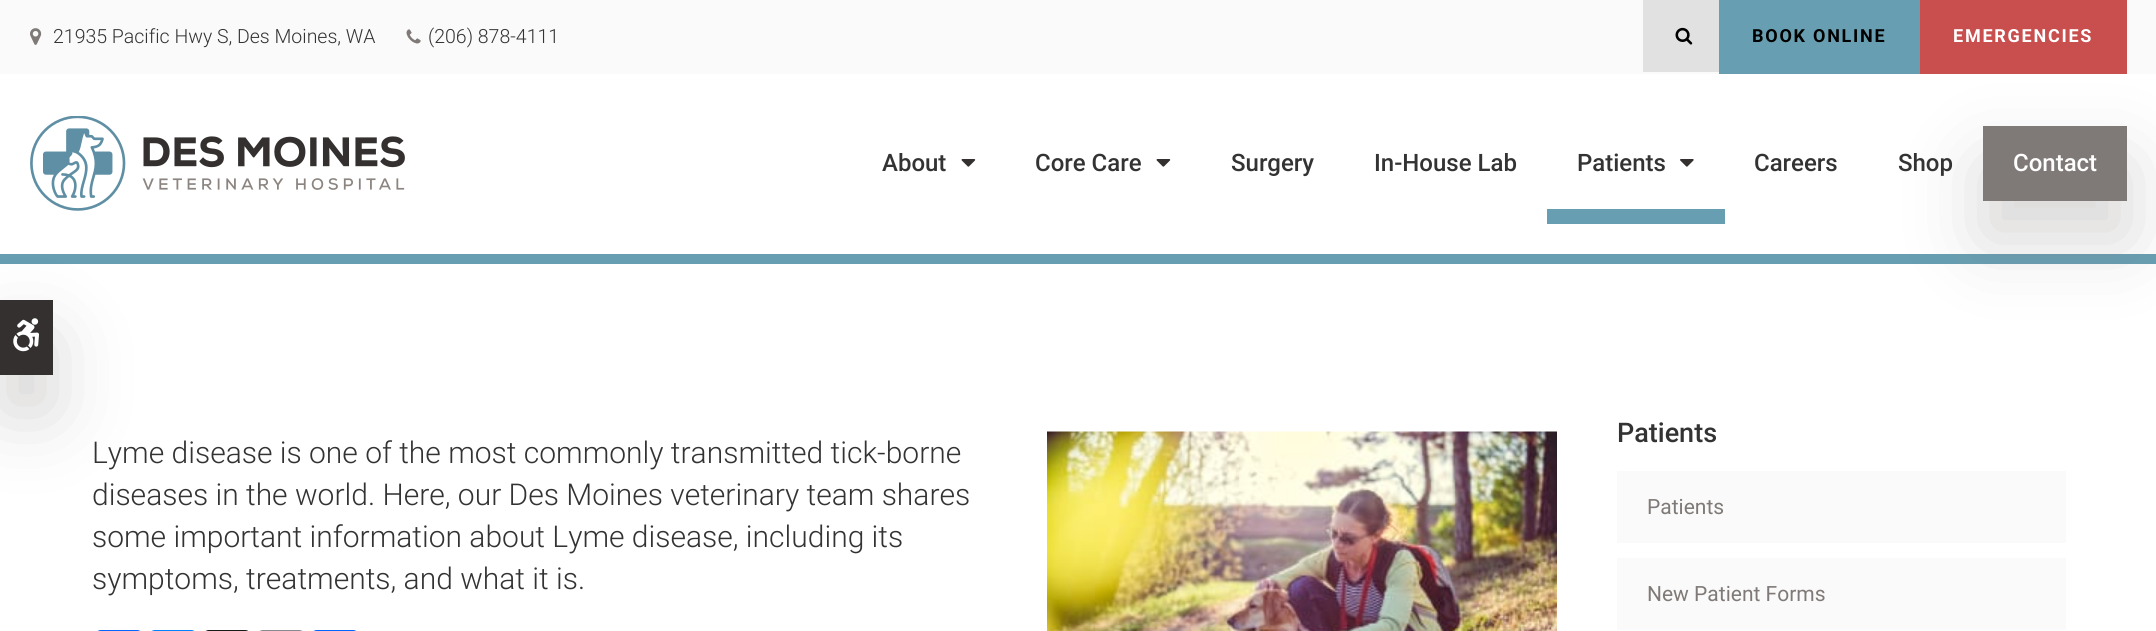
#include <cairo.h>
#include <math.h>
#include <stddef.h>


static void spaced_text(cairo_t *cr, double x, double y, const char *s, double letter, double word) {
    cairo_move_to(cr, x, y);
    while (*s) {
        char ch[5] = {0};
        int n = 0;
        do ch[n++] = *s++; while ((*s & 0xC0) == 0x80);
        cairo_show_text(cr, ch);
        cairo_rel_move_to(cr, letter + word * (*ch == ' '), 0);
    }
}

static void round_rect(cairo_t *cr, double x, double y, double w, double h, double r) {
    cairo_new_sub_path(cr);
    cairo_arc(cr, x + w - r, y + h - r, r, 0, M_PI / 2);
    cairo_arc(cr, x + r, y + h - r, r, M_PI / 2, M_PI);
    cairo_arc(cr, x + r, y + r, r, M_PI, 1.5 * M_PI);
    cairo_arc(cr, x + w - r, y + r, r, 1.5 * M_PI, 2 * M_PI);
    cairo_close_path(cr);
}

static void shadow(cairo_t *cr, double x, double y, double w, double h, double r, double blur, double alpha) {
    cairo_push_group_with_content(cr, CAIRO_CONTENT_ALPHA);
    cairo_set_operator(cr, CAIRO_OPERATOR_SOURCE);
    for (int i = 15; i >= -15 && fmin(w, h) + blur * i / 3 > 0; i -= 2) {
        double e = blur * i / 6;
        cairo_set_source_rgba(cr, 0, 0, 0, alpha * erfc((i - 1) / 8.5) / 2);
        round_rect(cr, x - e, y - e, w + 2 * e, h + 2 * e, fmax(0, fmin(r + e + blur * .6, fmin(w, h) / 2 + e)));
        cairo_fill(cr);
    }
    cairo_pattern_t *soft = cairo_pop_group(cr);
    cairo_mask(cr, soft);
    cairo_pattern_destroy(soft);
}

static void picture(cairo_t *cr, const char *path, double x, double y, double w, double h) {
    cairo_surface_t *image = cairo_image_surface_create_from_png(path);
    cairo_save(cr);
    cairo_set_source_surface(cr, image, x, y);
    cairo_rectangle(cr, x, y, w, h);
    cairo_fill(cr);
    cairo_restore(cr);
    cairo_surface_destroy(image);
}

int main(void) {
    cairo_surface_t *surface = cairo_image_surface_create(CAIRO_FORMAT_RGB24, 2156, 631);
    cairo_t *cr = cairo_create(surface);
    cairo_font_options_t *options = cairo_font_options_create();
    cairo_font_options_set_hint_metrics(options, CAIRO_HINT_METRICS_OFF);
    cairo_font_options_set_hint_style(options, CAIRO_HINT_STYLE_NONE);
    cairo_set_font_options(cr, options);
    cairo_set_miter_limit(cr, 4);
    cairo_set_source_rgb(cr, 1, 1, 1);
    cairo_paint(cr);
    cairo_set_source_rgb(cr, 0.98, 0.98, 0.98);
    cairo_rectangle(cr, 0, 0, 2156, 74);
    cairo_fill(cr);
    picture(cr, "img1.png", 30, 28, 12, 17);
    cairo_select_font_face(cr, "Roboto Light", CAIRO_FONT_SLANT_NORMAL, CAIRO_FONT_WEIGHT_NORMAL);
    cairo_set_font_size(cr, 19.5);
    cairo_set_source_rgb(cr, 0.2, 0.2, 0.2);
    cairo_move_to(cr, 53, 43);
    cairo_show_text(cr, "21935 Pacific Hwy S, Des Moines, WA");
    picture(cr, "img2.png", 406, 29, 15, 15);
    cairo_move_to(cr, 428, 43);
    cairo_show_text(cr, "(206) 878-4111");
    cairo_set_source_rgb(cr, 0.882, 0.882, 0.882);
    cairo_rectangle(cr, 1643, 0, 76, 72);
    cairo_fill(cr);
    picture(cr, "img3.png", 1675, 27, 18, 18);
    cairo_set_source_rgb(cr, 0.404, 0.62, 0.698);
    cairo_rectangle(cr, 1719, 0, 201, 74);
    cairo_fill(cr);
    cairo_select_font_face(cr, "Roboto", CAIRO_FONT_SLANT_NORMAL, CAIRO_FONT_WEIGHT_BOLD);
    cairo_set_font_size(cr, 18);
    cairo_set_source_rgb(cr, 0, 0, 0);
    spaced_text(cr, 1752, 42, "BOOK ONLINE", 1.75, 0);
    cairo_set_source_rgb(cr, 0.788, 0.31, 0.31);
    cairo_rectangle(cr, 1920, 0, 207, 74);
    cairo_fill(cr);
    cairo_set_source_rgb(cr, 1, 1, 1);
    spaced_text(cr, 1953, 42, "EMERGENCIES", 1.75, 0);
    picture(cr, "img4.png", 30, 116, 375, 95);
    cairo_select_font_face(cr, "Roboto Medium", CAIRO_FONT_SLANT_NORMAL, CAIRO_FONT_WEIGHT_NORMAL);
    cairo_set_font_size(cr, 24);
    cairo_set_source_rgb(cr, 0.2, 0.2, 0.2);
    cairo_move_to(cr, 882, 171);
    cairo_show_text(cr, "About");
    picture(cr, "img5.png", 961, 159, 15, 8);
    cairo_move_to(cr, 1035, 171);
    cairo_show_text(cr, "Core Care");
    picture(cr, "img5.png", 1156, 159, 15, 8);
    cairo_move_to(cr, 1231, 171);
    cairo_show_text(cr, "Surgery");
    cairo_move_to(cr, 1374, 171);
    cairo_show_text(cr, "In-House Lab");
    cairo_set_source_rgb(cr, 0.404, 0.62, 0.698);
    cairo_rectangle(cr, 1547, 209, 178, 15);
    cairo_fill(cr);
    cairo_set_source_rgb(cr, 0.2, 0.2, 0.2);
    cairo_move_to(cr, 1577, 171);
    cairo_show_text(cr, "Patients");
    picture(cr, "img6.png", 1680, 159, 14, 8);
    cairo_move_to(cr, 1754, 171);
    cairo_show_text(cr, "Careers");
    cairo_set_source_rgb(cr, 0.404, 0.62, 0.698);
    cairo_rectangle(cr, 0, 254, 2156, 10);
    cairo_fill(cr);
    cairo_set_source_rgb(cr, 0.498, 0.478, 0.467);
    shadow(cr, 1983, 164, 144, 75, 0, 37.5, 0.3);
    cairo_set_source_rgb(cr, 0.2, 0.2, 0.2);
    cairo_move_to(cr, 1898, 171);
    cairo_show_text(cr, "Shop");
    cairo_set_source_rgb(cr, 0.498, 0.478, 0.467);
    cairo_rectangle(cr, 1983, 126, 144, 75);
    cairo_fill(cr);
    cairo_set_source_rgb(cr, 1, 1, 1);
    cairo_move_to(cr, 2013, 171);
    cairo_show_text(cr, "Contact");
    cairo_set_source_rgb(cr, 0.498, 0.478, 0.467);
    shadow(cr, 0, 338, 53, 75, 0, 37.5, 0.3);
    cairo_set_source_rgb(cr, 0.2, 0.188, 0.184);
    cairo_rectangle(cr, 0, 300, 53, 75);
    cairo_fill(cr);
    picture(cr, "img7.png", 13, 318, 26, 34);
    cairo_select_font_face(cr, "Roboto Light", CAIRO_FONT_SLANT_NORMAL, CAIRO_FONT_WEIGHT_NORMAL);
    cairo_set_font_size(cr, 30);
    cairo_set_source_rgb(cr, 0.2, 0.2, 0.2);
    cairo_move_to(cr, 92, 463);
    cairo_show_text(cr, "Lyme disease is one of the most commonly transmitted tick-borne");
    cairo_move_to(cr, 92, 505);
    cairo_show_text(cr, "diseases in the world. Here, our Des Moines veterinary team shares");
    cairo_move_to(cr, 92, 547);
    cairo_show_text(cr, "some important information about Lyme disease, including its");
    cairo_move_to(cr, 92, 589);
    cairo_show_text(cr, "symptoms, treatments, and what it is.");
    picture(cr, "img8.png", 1047, 431, 510, 200);
    cairo_set_source_rgb(cr, 0.031, 0.4, 1);
    round_rect(cr, 95, 630, 48, 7, 6);
    cairo_fill(cr);
    cairo_set_source_rgb(cr, 0, 0.518, 1);
    round_rect(cr, 149, 630, 48, 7, 6);
    cairo_fill(cr);
    cairo_set_source_rgb(cr, 0.102, 0.102, 0.102);
    round_rect(cr, 203, 630, 48, 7, 6);
    cairo_fill(cr);
    cairo_set_source_rgb(cr, 0.533, 0.537, 0.565);
    round_rect(cr, 257, 630, 48, 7, 6);
    cairo_fill(cr);
    cairo_set_source_rgb(cr, 0.004, 0.4, 1);
    round_rect(cr, 311, 630, 48, 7, 6);
    cairo_fill(cr);
    cairo_select_font_face(cr, "Roboto Medium", CAIRO_FONT_SLANT_NORMAL, CAIRO_FONT_WEIGHT_NORMAL);
    cairo_set_font_size(cr, 27);
    cairo_set_source_rgb(cr, 0.2, 0.2, 0.2);
    cairo_move_to(cr, 1617, 442);
    cairo_show_text(cr, "Patients");
    cairo_set_source_rgb(cr, 0.98, 0.98, 0.98);
    cairo_rectangle(cr, 1617, 471, 449, 72);
    cairo_fill(cr);
    cairo_select_font_face(cr, "Roboto", CAIRO_FONT_SLANT_NORMAL, CAIRO_FONT_WEIGHT_NORMAL);
    cairo_set_font_size(cr, 21);
    cairo_set_source_rgb(cr, 0.498, 0.478, 0.467);
    cairo_move_to(cr, 1647, 514);
    cairo_show_text(cr, "Patients");
    cairo_set_source_rgb(cr, 0.98, 0.98, 0.98);
    cairo_rectangle(cr, 1617, 558, 449, 72);
    cairo_fill(cr);
    cairo_set_source_rgb(cr, 0.498, 0.478, 0.467);
    cairo_move_to(cr, 1647, 601);
    cairo_show_text(cr, "New Patient Forms");
    cairo_surface_write_to_png(surface, "page.png");
    cairo_font_options_destroy(options);
    cairo_destroy(cr);
    cairo_surface_destroy(surface);
    return 0;
}
